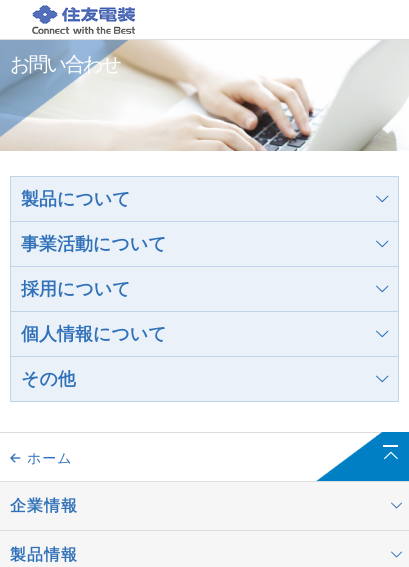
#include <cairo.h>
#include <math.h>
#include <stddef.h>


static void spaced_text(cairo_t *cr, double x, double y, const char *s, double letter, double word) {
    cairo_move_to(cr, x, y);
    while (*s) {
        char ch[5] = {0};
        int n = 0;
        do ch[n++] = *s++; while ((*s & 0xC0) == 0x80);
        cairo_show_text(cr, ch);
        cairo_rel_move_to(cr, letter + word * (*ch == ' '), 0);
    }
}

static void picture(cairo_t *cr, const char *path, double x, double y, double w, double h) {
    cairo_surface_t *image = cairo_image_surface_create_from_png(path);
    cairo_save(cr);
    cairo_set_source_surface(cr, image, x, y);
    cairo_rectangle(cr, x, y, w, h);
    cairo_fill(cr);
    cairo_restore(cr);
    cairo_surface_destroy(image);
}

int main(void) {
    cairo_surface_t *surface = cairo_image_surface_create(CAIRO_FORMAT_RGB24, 409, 567);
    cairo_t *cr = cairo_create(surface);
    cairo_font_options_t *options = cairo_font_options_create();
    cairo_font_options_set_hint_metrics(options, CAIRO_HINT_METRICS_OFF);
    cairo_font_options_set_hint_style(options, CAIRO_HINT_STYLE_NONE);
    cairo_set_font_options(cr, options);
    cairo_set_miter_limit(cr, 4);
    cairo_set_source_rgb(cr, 1, 1, 1);
    cairo_paint(cr);
    cairo_set_source_rgb(cr, 0.867, 0.867, 0.867);
    cairo_rectangle(cr, 0, 39, 409, 1);
    cairo_fill(cr);
    picture(cr, "img1.png", 32, 5, 103, 29);
    picture(cr, "img2.png", 0, 40, 409, 111);
    cairo_select_font_face(cr, "WenQuanYi Zen Hei Medium", CAIRO_FONT_SLANT_NORMAL, CAIRO_FONT_WEIGHT_NORMAL);
    cairo_set_font_size(cr, 20);
    cairo_set_source_rgb(cr, 1, 1, 1);
    spaced_text(cr, 10, 71, "お問い合わせ", -2, 0);
    cairo_rectangle(cr, 10.5, 176.5, 388, 45);
    cairo_set_source_rgb(cr, 0.753, 0.831, 0.918);
    cairo_set_line_width(cr, 1);
    cairo_stroke(cr);
    cairo_set_source_rgb(cr, 0.918, 0.945, 0.973);
    cairo_rectangle(cr, 11, 177, 387, 44);
    cairo_fill(cr);
    cairo_select_font_face(cr, "WenQuanYi Zen Hei", CAIRO_FONT_SLANT_NORMAL, CAIRO_FONT_WEIGHT_BOLD);
    cairo_set_font_size(cr, 18);
    cairo_set_source_rgb(cr, 0.188, 0.443, 0.725);
    cairo_move_to(cr, 21, 205);
    cairo_show_text(cr, "製品について");
    picture(cr, "img3.png", 376, 195, 13, 8);
    cairo_set_source_rgb(cr, 0.753, 0.831, 0.918);
    cairo_rectangle(cr, 398, 222, 1, 180);
    cairo_fill(cr);
    cairo_rectangle(cr, 10, 266, 389, 1);
    cairo_fill(cr);
    cairo_rectangle(cr, 10, 222, 1, 45);
    cairo_fill(cr);
    cairo_set_source_rgb(cr, 0.918, 0.945, 0.973);
    cairo_rectangle(cr, 11, 222, 387, 44);
    cairo_fill(cr);
    cairo_set_source_rgb(cr, 0.188, 0.443, 0.725);
    cairo_move_to(cr, 21, 250);
    cairo_show_text(cr, "事業活動について");
    picture(cr, "img3.png", 376, 240, 13, 8);
    cairo_set_source_rgb(cr, 0.753, 0.831, 0.918);
    cairo_rectangle(cr, 10, 311, 389, 1);
    cairo_fill(cr);
    cairo_rectangle(cr, 10, 267, 1, 45);
    cairo_fill(cr);
    cairo_set_source_rgb(cr, 0.918, 0.945, 0.973);
    cairo_rectangle(cr, 11, 267, 387, 44);
    cairo_fill(cr);
    cairo_set_source_rgb(cr, 0.188, 0.443, 0.725);
    cairo_move_to(cr, 21, 295);
    cairo_show_text(cr, "採用について");
    picture(cr, "img3.png", 376, 285, 13, 8);
    cairo_set_source_rgb(cr, 0.753, 0.831, 0.918);
    cairo_rectangle(cr, 10, 356, 389, 1);
    cairo_fill(cr);
    cairo_rectangle(cr, 10, 312, 1, 45);
    cairo_fill(cr);
    cairo_set_source_rgb(cr, 0.918, 0.945, 0.973);
    cairo_rectangle(cr, 11, 312, 387, 44);
    cairo_fill(cr);
    cairo_set_source_rgb(cr, 0.188, 0.443, 0.725);
    cairo_move_to(cr, 21, 340);
    cairo_show_text(cr, "個人情報について");
    picture(cr, "img3.png", 376, 330, 13, 8);
    cairo_set_source_rgb(cr, 0.753, 0.831, 0.918);
    cairo_rectangle(cr, 10, 401, 389, 1);
    cairo_fill(cr);
    cairo_rectangle(cr, 10, 357, 1, 45);
    cairo_fill(cr);
    cairo_set_source_rgb(cr, 0.918, 0.945, 0.973);
    cairo_rectangle(cr, 11, 357, 387, 44);
    cairo_fill(cr);
    cairo_set_source_rgb(cr, 0.188, 0.443, 0.725);
    cairo_move_to(cr, 21, 385);
    cairo_show_text(cr, "その他");
    picture(cr, "img3.png", 376, 375, 13, 8);
    cairo_set_source_rgb(cr, 0.867, 0.867, 0.867);
    cairo_rectangle(cr, 0, 432, 383, 1);
    cairo_fill(cr);
    picture(cr, "img4.png", 10, 453, 11, 10);
    cairo_select_font_face(cr, "WenQuanYi Zen Hei Medium", CAIRO_FONT_SLANT_NORMAL, CAIRO_FONT_WEIGHT_NORMAL);
    cairo_set_font_size(cr, 14);
    cairo_set_source_rgb(cr, 0.188, 0.443, 0.725);
    spaced_text(cr, 27, 463, "ホーム", 1, 0);
    picture(cr, "img5.png", 316, 432, 93, 49);
    cairo_set_source_rgb(cr, 1, 1, 1);
    cairo_rectangle(cr, 383, 445, 15, 2);
    cairo_fill(cr);
    picture(cr, "img6.png", 384, 451, 14, 8);
    cairo_set_source_rgb(cr, 0.961, 0.961, 0.961);
    cairo_rectangle(cr, 0, 482, 409, 85);
    cairo_fill(cr);
    cairo_set_source_rgb(cr, 0.867, 0.867, 0.867);
    cairo_rectangle(cr, 0, 481, 409, 1);
    cairo_fill(cr);
    cairo_rectangle(cr, 0, 530, 409, 1);
    cairo_fill(cr);
    cairo_select_font_face(cr, "WenQuanYi Zen Hei", CAIRO_FONT_SLANT_NORMAL, CAIRO_FONT_WEIGHT_BOLD);
    cairo_set_font_size(cr, 16);
    cairo_set_source_rgb(cr, 0.188, 0.443, 0.725);
    spaced_text(cr, 10, 511, "企業情報", 1, 0);
    picture(cr, "img7.png", 391, 502, 11, 7);
    spaced_text(cr, 10, 560, "製品情報", 1, 0);
    picture(cr, "img7.png", 391, 551, 11, 7);
    cairo_surface_write_to_png(surface, "page.png");
    cairo_font_options_destroy(options);
    cairo_destroy(cr);
    cairo_surface_destroy(surface);
    return 0;
}
